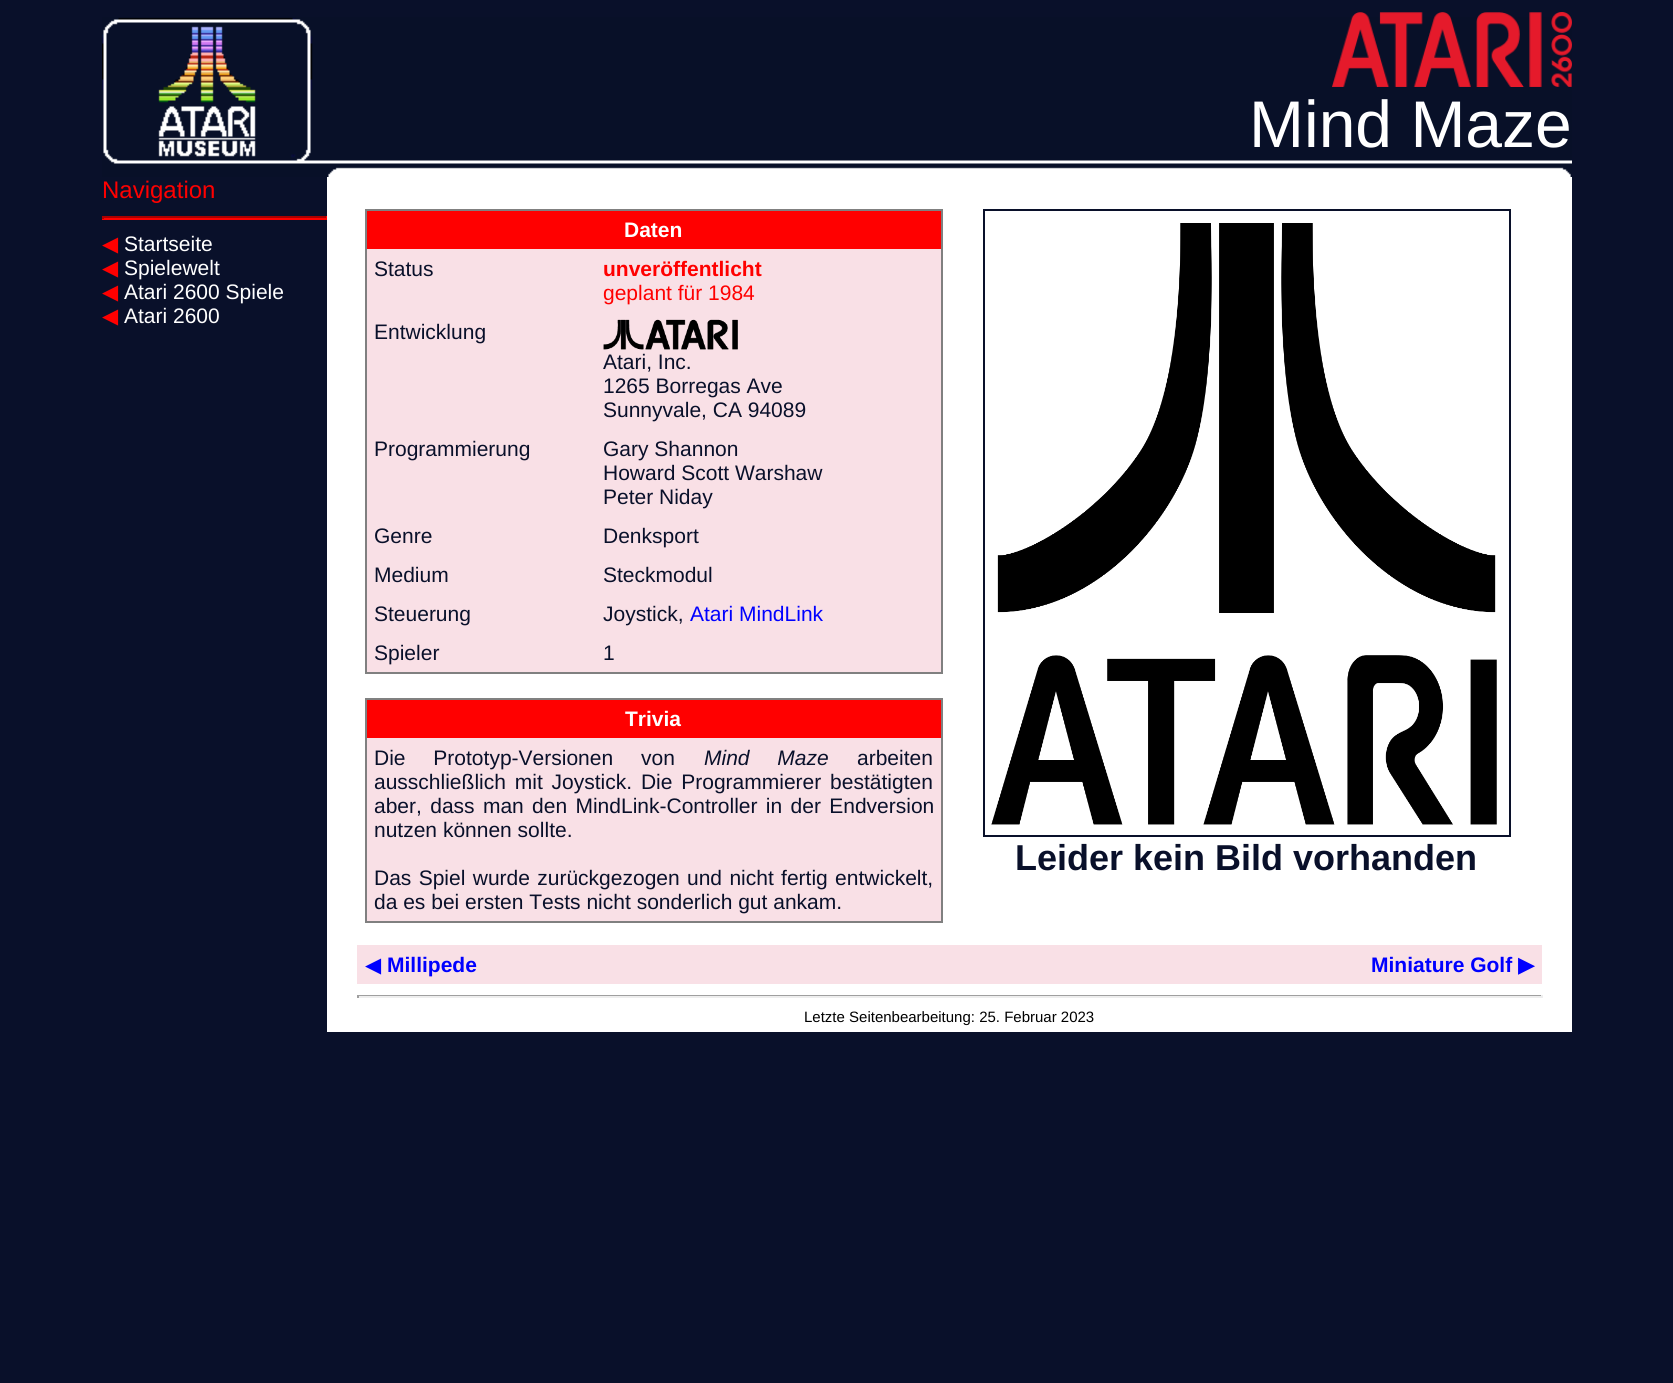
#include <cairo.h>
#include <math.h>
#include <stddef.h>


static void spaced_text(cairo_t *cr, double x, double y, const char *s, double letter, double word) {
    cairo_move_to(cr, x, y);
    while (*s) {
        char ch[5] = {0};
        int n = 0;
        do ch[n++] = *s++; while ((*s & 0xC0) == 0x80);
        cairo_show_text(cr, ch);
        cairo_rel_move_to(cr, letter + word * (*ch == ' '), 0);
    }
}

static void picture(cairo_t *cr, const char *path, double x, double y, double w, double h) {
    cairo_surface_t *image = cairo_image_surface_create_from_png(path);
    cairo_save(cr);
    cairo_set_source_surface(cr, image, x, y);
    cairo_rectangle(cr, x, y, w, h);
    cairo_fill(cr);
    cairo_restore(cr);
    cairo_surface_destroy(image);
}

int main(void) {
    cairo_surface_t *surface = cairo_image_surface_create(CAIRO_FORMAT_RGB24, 1673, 1383);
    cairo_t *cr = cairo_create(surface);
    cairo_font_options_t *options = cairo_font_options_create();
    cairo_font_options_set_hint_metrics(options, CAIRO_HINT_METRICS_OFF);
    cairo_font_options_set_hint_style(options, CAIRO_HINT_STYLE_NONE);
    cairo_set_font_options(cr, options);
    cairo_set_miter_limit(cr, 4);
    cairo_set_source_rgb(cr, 0.039, 0.063, 0.165);
    cairo_paint(cr);
    picture(cr, "img1.png", 102, 17, 1470, 160);
    picture(cr, "img2.png", 1332, 12, 240, 75);
    cairo_select_font_face(cr, "Liberation Sans", CAIRO_FONT_SLANT_NORMAL, CAIRO_FONT_WEIGHT_NORMAL);
    cairo_set_font_size(cr, 66);
    cairo_set_source_rgb(cr, 1, 1, 1);
    cairo_move_to(cr, 1249, 147);
    cairo_show_text(cr, "Mind Maze");
    cairo_set_font_size(cr, 24);
    cairo_set_source_rgb(cr, 1, 0, 0);
    cairo_move_to(cr, 102, 198);
    cairo_show_text(cr, "Navigation");
    cairo_set_source_rgb(cr, 0.667, 0, 0);
    cairo_rectangle(cr, 102, 216, 225, 2);
    cairo_fill(cr);
    cairo_set_source_rgb(cr, 1, 0, 0);
    cairo_rectangle(cr, 326, 216, 1, 3);
    cairo_fill(cr);
    cairo_rectangle(cr, 102, 218, 225, 2);
    cairo_fill(cr);
    cairo_set_source_rgb(cr, 0.667, 0, 0);
    cairo_rectangle(cr, 102, 216, 2, 3);
    cairo_fill(cr);
    cairo_select_font_face(cr, "DejaVu Sans", CAIRO_FONT_SLANT_NORMAL, CAIRO_FONT_WEIGHT_NORMAL);
    cairo_set_font_size(cr, 21);
    cairo_set_source_rgb(cr, 1, 0, 0);
    cairo_move_to(cr, 102, 251);
    cairo_show_text(cr, "◀");
    cairo_select_font_face(cr, "Liberation Sans", CAIRO_FONT_SLANT_NORMAL, CAIRO_FONT_WEIGHT_NORMAL);
    cairo_set_source_rgb(cr, 1, 1, 1);
    cairo_move_to(cr, 124, 251);
    cairo_show_text(cr, "Startseite");
    cairo_select_font_face(cr, "DejaVu Sans", CAIRO_FONT_SLANT_NORMAL, CAIRO_FONT_WEIGHT_NORMAL);
    cairo_set_source_rgb(cr, 1, 0, 0);
    cairo_move_to(cr, 102, 275);
    cairo_show_text(cr, "◀");
    cairo_select_font_face(cr, "Liberation Sans", CAIRO_FONT_SLANT_NORMAL, CAIRO_FONT_WEIGHT_NORMAL);
    cairo_set_source_rgb(cr, 1, 1, 1);
    cairo_move_to(cr, 124, 275);
    cairo_show_text(cr, "Spielewelt");
    cairo_select_font_face(cr, "DejaVu Sans", CAIRO_FONT_SLANT_NORMAL, CAIRO_FONT_WEIGHT_NORMAL);
    cairo_set_source_rgb(cr, 1, 0, 0);
    cairo_move_to(cr, 102, 299);
    cairo_show_text(cr, "◀");
    cairo_select_font_face(cr, "Liberation Sans", CAIRO_FONT_SLANT_NORMAL, CAIRO_FONT_WEIGHT_NORMAL);
    cairo_set_source_rgb(cr, 1, 1, 1);
    cairo_move_to(cr, 124, 299);
    cairo_show_text(cr, "Atari 2600 Spiele");
    cairo_select_font_face(cr, "DejaVu Sans", CAIRO_FONT_SLANT_NORMAL, CAIRO_FONT_WEIGHT_NORMAL);
    cairo_set_source_rgb(cr, 1, 0, 0);
    cairo_move_to(cr, 102, 323);
    cairo_show_text(cr, "◀");
    cairo_select_font_face(cr, "Liberation Sans", CAIRO_FONT_SLANT_NORMAL, CAIRO_FONT_WEIGHT_NORMAL);
    cairo_set_source_rgb(cr, 1, 1, 1);
    cairo_move_to(cr, 124, 323);
    cairo_show_text(cr, "Atari 2600");
    cairo_rectangle(cr, 327, 177, 1245, 855);
    cairo_fill(cr);
    cairo_set_source_rgb(cr, 0.973, 0.878, 0.902);
    cairo_rectangle(cr, 367, 249, 574, 423);
    cairo_fill(cr);
    cairo_set_source_rgb(cr, 0.502, 0.502, 0.502);
    cairo_rectangle(cr, 365, 209, 577, 2);
    cairo_fill(cr);
    cairo_rectangle(cr, 941, 209, 2, 465);
    cairo_fill(cr);
    cairo_rectangle(cr, 365, 672, 577, 2);
    cairo_fill(cr);
    cairo_rectangle(cr, 365, 209, 2, 465);
    cairo_fill(cr);
    cairo_set_source_rgb(cr, 1, 0, 0);
    cairo_rectangle(cr, 367, 211, 574, 38);
    cairo_fill(cr);
    cairo_select_font_face(cr, "Liberation Sans", CAIRO_FONT_SLANT_NORMAL, CAIRO_FONT_WEIGHT_BOLD);
    cairo_set_source_rgb(cr, 1, 1, 1);
    cairo_move_to(cr, 624, 237);
    cairo_show_text(cr, "Daten");
    cairo_select_font_face(cr, "Liberation Sans", CAIRO_FONT_SLANT_NORMAL, CAIRO_FONT_WEIGHT_NORMAL);
    cairo_set_source_rgb(cr, 0.039, 0.063, 0.165);
    cairo_move_to(cr, 374, 276);
    cairo_show_text(cr, "Status");
    cairo_select_font_face(cr, "Liberation Sans", CAIRO_FONT_SLANT_NORMAL, CAIRO_FONT_WEIGHT_BOLD);
    cairo_set_source_rgb(cr, 1, 0, 0);
    cairo_move_to(cr, 603, 276);
    cairo_show_text(cr, "unveröffentlicht");
    cairo_select_font_face(cr, "Liberation Sans", CAIRO_FONT_SLANT_NORMAL, CAIRO_FONT_WEIGHT_NORMAL);
    cairo_move_to(cr, 603, 300);
    cairo_show_text(cr, "geplant für 1984");
    cairo_set_source_rgb(cr, 0.039, 0.063, 0.165);
    cairo_move_to(cr, 374, 339);
    cairo_show_text(cr, "Entwicklung");
    picture(cr, "img3.png", 603, 319, 135, 31);
    cairo_move_to(cr, 603, 369);
    cairo_show_text(cr, "Atari, Inc.");
    cairo_move_to(cr, 603, 393);
    cairo_show_text(cr, "1265 Borregas Ave");
    cairo_move_to(cr, 603, 417);
    cairo_show_text(cr, "Sunnyvale, CA 94089");
    cairo_move_to(cr, 374, 456);
    cairo_show_text(cr, "Programmierung");
    cairo_move_to(cr, 603, 456);
    cairo_show_text(cr, "Gary Shannon");
    cairo_move_to(cr, 603, 480);
    cairo_show_text(cr, "Howard Scott Warshaw");
    cairo_move_to(cr, 603, 504);
    cairo_show_text(cr, "Peter Niday");
    cairo_move_to(cr, 374, 543);
    cairo_show_text(cr, "Genre");
    cairo_move_to(cr, 603, 543);
    cairo_show_text(cr, "Denksport");
    cairo_move_to(cr, 374, 582);
    cairo_show_text(cr, "Medium");
    cairo_move_to(cr, 603, 582);
    cairo_show_text(cr, "Steckmodul");
    cairo_move_to(cr, 374, 621);
    cairo_show_text(cr, "Steuerung");
    cairo_move_to(cr, 603, 621);
    cairo_show_text(cr, "Joystick,");
    cairo_set_source_rgb(cr, 0, 0, 1);
    cairo_move_to(cr, 690, 621);
    cairo_show_text(cr, "Atari MindLink");
    cairo_set_source_rgb(cr, 0.039, 0.063, 0.165);
    cairo_move_to(cr, 374, 660);
    cairo_show_text(cr, "Spieler");
    cairo_move_to(cr, 603, 660);
    cairo_show_text(cr, "1");
    cairo_set_source_rgb(cr, 0.973, 0.878, 0.902);
    cairo_rectangle(cr, 367, 738, 574, 183);
    cairo_fill(cr);
    cairo_set_source_rgb(cr, 0.502, 0.502, 0.502);
    cairo_rectangle(cr, 365, 698, 577, 2);
    cairo_fill(cr);
    cairo_rectangle(cr, 941, 698, 2, 225);
    cairo_fill(cr);
    cairo_rectangle(cr, 365, 921, 577, 2);
    cairo_fill(cr);
    cairo_rectangle(cr, 365, 698, 2, 225);
    cairo_fill(cr);
    cairo_set_source_rgb(cr, 1, 0, 0);
    cairo_rectangle(cr, 367, 700, 574, 38);
    cairo_fill(cr);
    cairo_select_font_face(cr, "Liberation Sans", CAIRO_FONT_SLANT_NORMAL, CAIRO_FONT_WEIGHT_BOLD);
    cairo_set_source_rgb(cr, 1, 1, 1);
    cairo_move_to(cr, 625, 726);
    cairo_show_text(cr, "Trivia");
    cairo_select_font_face(cr, "Liberation Sans", CAIRO_FONT_SLANT_NORMAL, CAIRO_FONT_WEIGHT_NORMAL);
    cairo_set_source_rgb(cr, 0.039, 0.063, 0.165);
    spaced_text(cr, 374, 765, "Die Prototyp-Versionen von", 0, 22);
    cairo_select_font_face(cr, "Liberation Sans", CAIRO_FONT_SLANT_ITALIC, CAIRO_FONT_WEIGHT_NORMAL);
    spaced_text(cr, 704, 765, "Mind Maze", 0, 22);
    cairo_select_font_face(cr, "Liberation Sans", CAIRO_FONT_SLANT_NORMAL, CAIRO_FONT_WEIGHT_NORMAL);
    cairo_move_to(cr, 857, 765);
    cairo_show_text(cr, "arbeiten");
    spaced_text(cr, 374, 789, "ausschließlich mit Joystick. Die Programmierer bestätigten", 0, 3);
    spaced_text(cr, 374, 813, "aber, dass man den MindLink-Controller in der Endversion", 0, 2.5);
    cairo_move_to(cr, 374, 837);
    cairo_show_text(cr, "nutzen können sollte.");
    spaced_text(cr, 374, 885, "Das Spiel wurde zurückgezogen und nicht fertig entwickelt,", 0, 1.5);
    cairo_move_to(cr, 374, 909);
    cairo_show_text(cr, "da es bei ersten Tests nicht sonderlich gut ankam.");
    cairo_rectangle(cr, 984, 210, 526, 626);
    cairo_stroke(cr);
    picture(cr, "img4.png", 991, 223, 506, 602);
    cairo_select_font_face(cr, "Liberation Sans", CAIRO_FONT_SLANT_NORMAL, CAIRO_FONT_WEIGHT_BOLD);
    cairo_set_font_size(cr, 36);
    cairo_move_to(cr, 1015, 870);
    cairo_show_text(cr, "Leider kein Bild vorhanden");
    cairo_set_source_rgb(cr, 0.973, 0.878, 0.902);
    cairo_rectangle(cr, 357, 945, 1185, 39);
    cairo_fill(cr);
    cairo_select_font_face(cr, "DejaVu Sans", CAIRO_FONT_SLANT_NORMAL, CAIRO_FONT_WEIGHT_NORMAL);
    cairo_set_font_size(cr, 21);
    cairo_set_source_rgb(cr, 0, 0, 1);
    cairo_move_to(cr, 365, 972);
    cairo_show_text(cr, "◀");
    cairo_select_font_face(cr, "Liberation Sans", CAIRO_FONT_SLANT_NORMAL, CAIRO_FONT_WEIGHT_BOLD);
    cairo_move_to(cr, 387, 972);
    cairo_show_text(cr, "Millipede");
    cairo_move_to(cr, 1371, 972);
    cairo_show_text(cr, "Miniature Golf");
    cairo_select_font_face(cr, "DejaVu Sans", CAIRO_FONT_SLANT_NORMAL, CAIRO_FONT_WEIGHT_BOLD);
    cairo_move_to(cr, 1518, 972);
    cairo_show_text(cr, "▶");
    cairo_set_source_rgb(cr, 0.624, 0.624, 0.624);
    cairo_rectangle(cr, 357, 995, 1185, 1);
    cairo_fill(cr);
    cairo_set_source_rgb(cr, 0.933, 0.933, 0.933);
    cairo_rectangle(cr, 1541, 995, 2, 3);
    cairo_fill(cr);
    cairo_rectangle(cr, 357, 996, 1185, 2);
    cairo_fill(cr);
    cairo_set_source_rgb(cr, 0.624, 0.624, 0.624);
    cairo_rectangle(cr, 357, 995, 2, 3);
    cairo_fill(cr);
    cairo_select_font_face(cr, "Liberation Sans", CAIRO_FONT_SLANT_NORMAL, CAIRO_FONT_WEIGHT_NORMAL);
    cairo_set_font_size(cr, 15);
    cairo_set_source_rgb(cr, 0, 0, 0);
    cairo_move_to(cr, 804, 1022);
    cairo_show_text(cr, "Letzte Seitenbearbeitung: 25. Februar 2023");
    cairo_surface_write_to_png(surface, "page.png");
    cairo_font_options_destroy(options);
    cairo_destroy(cr);
    cairo_surface_destroy(surface);
    return 0;
}
